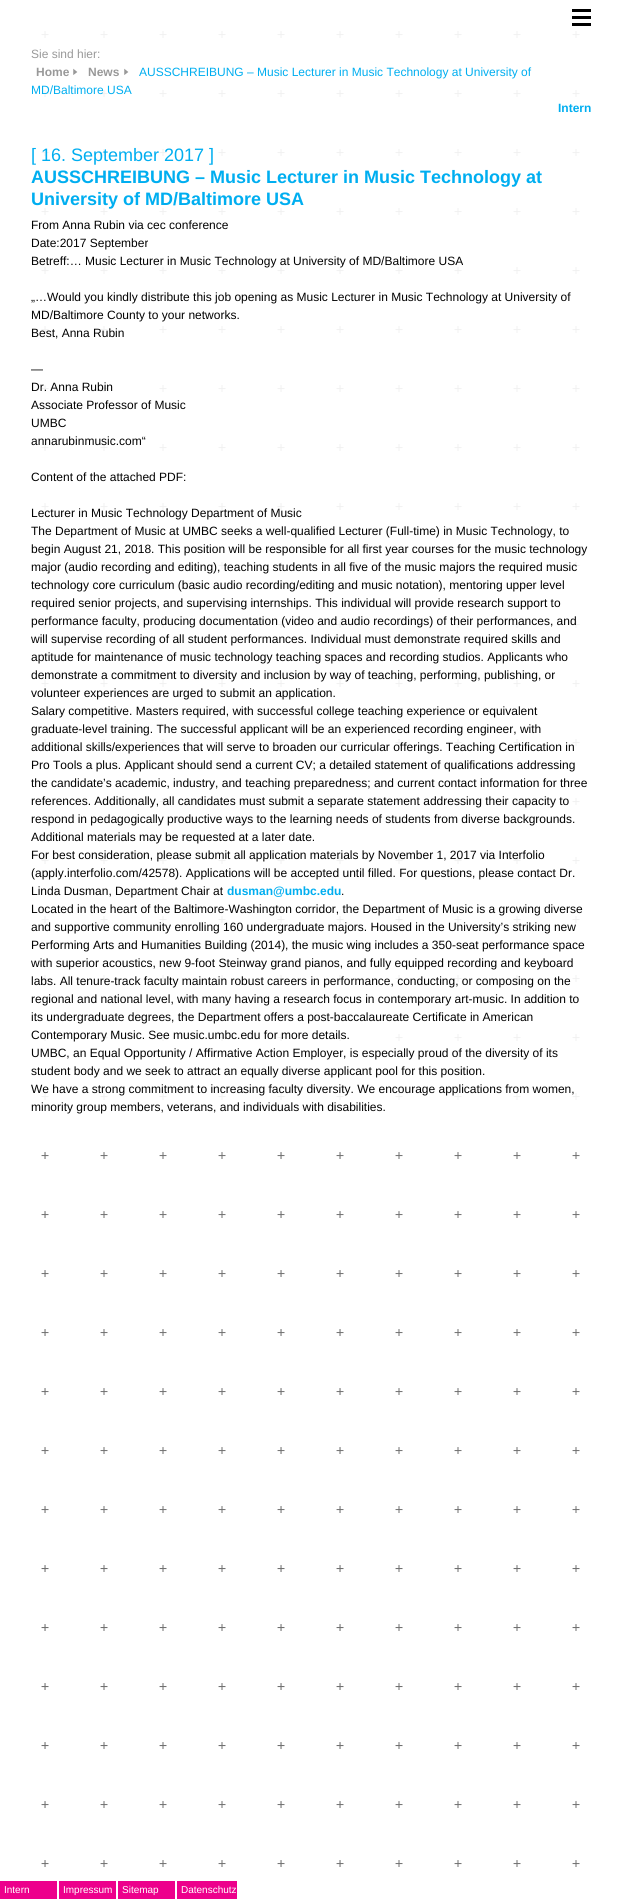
#include <cairo.h>
#include <math.h>
#include <stddef.h>


static void picture(cairo_t *cr, const char *path, double x, double y, double w, double h) {
    cairo_surface_t *image = cairo_image_surface_create_from_png(path);
    cairo_save(cr);
    cairo_set_source_surface(cr, image, x, y);
    cairo_rectangle(cr, x, y, w, h);
    cairo_fill(cr);
    cairo_restore(cr);
    cairo_surface_destroy(image);
}

int main(void) {
    cairo_surface_t *surface = cairo_image_surface_create(CAIRO_FORMAT_RGB24, 622, 1899);
    cairo_t *cr = cairo_create(surface);
    cairo_font_options_t *options = cairo_font_options_create();
    cairo_font_options_set_hint_metrics(options, CAIRO_HINT_METRICS_OFF);
    cairo_font_options_set_hint_style(options, CAIRO_HINT_STYLE_NONE);
    cairo_set_font_options(cr, options);
    cairo_set_miter_limit(cr, 4);
    cairo_set_source_rgb(cr, 1, 1, 1);
    cairo_paint(cr);
    picture(cr, "img1.png", 41, 31, 539, 1836);
    cairo_set_source_rgba(cr, 1, 1, 1, 0.9);
    cairo_rectangle(cr, 41, 31, 539, 1069);
    cairo_fill(cr);
    cairo_set_source_rgb(cr, 0, 0, 0);
    cairo_rectangle(cr, 572, 9, 19, 3);
    cairo_fill(cr);
    cairo_rectangle(cr, 572, 16, 19, 3);
    cairo_fill(cr);
    cairo_rectangle(cr, 572, 23, 19, 3);
    cairo_fill(cr);
    cairo_select_font_face(cr, "Liberation Sans", CAIRO_FONT_SLANT_NORMAL, CAIRO_FONT_WEIGHT_NORMAL);
    cairo_set_font_size(cr, 12);
    cairo_set_source_rgb(cr, 0.6, 0.6, 0.6);
    cairo_move_to(cr, 31, 58);
    cairo_show_text(cr, "Sie sind hier:");
    cairo_select_font_face(cr, "Liberation Sans", CAIRO_FONT_SLANT_NORMAL, CAIRO_FONT_WEIGHT_BOLD);
    cairo_move_to(cr, 36, 76);
    cairo_show_text(cr, "Home");
    picture(cr, "img2.png", 73, 68, 5, 7);
    cairo_move_to(cr, 88, 76);
    cairo_show_text(cr, "News");
    picture(cr, "img2.png", 124, 68, 5, 7);
    cairo_select_font_face(cr, "Liberation Sans", CAIRO_FONT_SLANT_NORMAL, CAIRO_FONT_WEIGHT_NORMAL);
    cairo_set_source_rgb(cr, 0, 0.682, 0.941);
    cairo_move_to(cr, 139, 76);
    cairo_show_text(cr, "AUSSCHREIBUNG – Music Lecturer in Music Technology at University of");
    cairo_move_to(cr, 31, 94);
    cairo_show_text(cr, "MD/Baltimore USA");
    cairo_select_font_face(cr, "Liberation Sans", CAIRO_FONT_SLANT_NORMAL, CAIRO_FONT_WEIGHT_BOLD);
    cairo_move_to(cr, 558, 112);
    cairo_show_text(cr, "Intern");
    cairo_select_font_face(cr, "Liberation Sans", CAIRO_FONT_SLANT_NORMAL, CAIRO_FONT_WEIGHT_NORMAL);
    cairo_set_font_size(cr, 18);
    cairo_move_to(cr, 31, 161);
    cairo_show_text(cr, "[ 16. September 2017 ]");
    cairo_select_font_face(cr, "Liberation Sans", CAIRO_FONT_SLANT_NORMAL, CAIRO_FONT_WEIGHT_BOLD);
    cairo_move_to(cr, 31, 183);
    cairo_show_text(cr, "AUSSCHREIBUNG – Music Lecturer in Music Technology at");
    cairo_move_to(cr, 31, 205);
    cairo_show_text(cr, "University of MD/Baltimore USA");
    cairo_select_font_face(cr, "Liberation Sans", CAIRO_FONT_SLANT_NORMAL, CAIRO_FONT_WEIGHT_NORMAL);
    cairo_set_font_size(cr, 12);
    cairo_set_source_rgb(cr, 0.004, 0.004, 0.004);
    cairo_move_to(cr, 31, 229);
    cairo_show_text(cr, "From Anna Rubin via cec conference");
    cairo_move_to(cr, 31, 247);
    cairo_show_text(cr, "Date:2017 September");
    cairo_move_to(cr, 31, 265);
    cairo_show_text(cr, "Betreff:… Music Lecturer in Music Technology at University of MD/Baltimore USA");
    cairo_move_to(cr, 31, 301);
    cairo_show_text(cr, "„…Would you kindly distribute this job opening as Music Lecturer in Music Technology at University of");
    cairo_move_to(cr, 31, 319);
    cairo_show_text(cr, "MD/Baltimore County to your networks.");
    cairo_move_to(cr, 31, 337);
    cairo_show_text(cr, "Best, Anna Rubin");
    cairo_move_to(cr, 31, 373);
    cairo_show_text(cr, "—");
    cairo_move_to(cr, 31, 391);
    cairo_show_text(cr, "Dr. Anna Rubin");
    cairo_move_to(cr, 31, 409);
    cairo_show_text(cr, "Associate Professor of Music");
    cairo_move_to(cr, 31, 427);
    cairo_show_text(cr, "UMBC");
    cairo_move_to(cr, 31, 445);
    cairo_show_text(cr, "annarubinmusic.com“");
    cairo_move_to(cr, 31, 481);
    cairo_show_text(cr, "Content of the attached PDF:");
    cairo_move_to(cr, 31, 517);
    cairo_show_text(cr, "Lecturer in Music Technology Department of Music");
    cairo_move_to(cr, 31, 535);
    cairo_show_text(cr, "The Department of Music at UMBC seeks a well-qualified Lecturer (Full-time) in Music Technology, to");
    cairo_move_to(cr, 31, 553);
    cairo_show_text(cr, "begin August 21, 2018. This position will be responsible for all first year courses for the music technology");
    cairo_move_to(cr, 31, 571);
    cairo_show_text(cr, "major (audio recording and editing), teaching students in all five of the music majors the required music");
    cairo_move_to(cr, 31, 589);
    cairo_show_text(cr, "technology core curriculum (basic audio recording/editing and music notation), mentoring upper level");
    cairo_move_to(cr, 31, 607);
    cairo_show_text(cr, "required senior projects, and supervising internships. This individual will provide research support to");
    cairo_move_to(cr, 31, 625);
    cairo_show_text(cr, "performance faculty, producing documentation (video and audio recordings) of their performances, and");
    cairo_move_to(cr, 31, 643);
    cairo_show_text(cr, "will supervise recording of all student performances. Individual must demonstrate required skills and");
    cairo_move_to(cr, 31, 661);
    cairo_show_text(cr, "aptitude for maintenance of music technology teaching spaces and recording studios. Applicants who");
    cairo_move_to(cr, 31, 679);
    cairo_show_text(cr, "demonstrate a commitment to diversity and inclusion by way of teaching, performing, publishing, or");
    cairo_move_to(cr, 31, 697);
    cairo_show_text(cr, "volunteer experiences are urged to submit an application.");
    cairo_move_to(cr, 31, 715);
    cairo_show_text(cr, "Salary competitive. Masters required, with successful college teaching experience or equivalent");
    cairo_move_to(cr, 31, 733);
    cairo_show_text(cr, "graduate-level training. The successful applicant will be an experienced recording engineer, with");
    cairo_move_to(cr, 31, 751);
    cairo_show_text(cr, "additional skills/experiences that will serve to broaden our curricular offerings. Teaching Certification in");
    cairo_move_to(cr, 31, 769);
    cairo_show_text(cr, "Pro Tools a plus. Applicant should send a current CV; a detailed statement of qualifications addressing");
    cairo_move_to(cr, 31, 787);
    cairo_show_text(cr, "the candidate’s academic, industry, and teaching preparedness; and current contact information for three");
    cairo_move_to(cr, 31, 805);
    cairo_show_text(cr, "references. Additionally, all candidates must submit a separate statement addressing their capacity to");
    cairo_move_to(cr, 31, 823);
    cairo_show_text(cr, "respond in pedagogically productive ways to the learning needs of students from diverse backgrounds.");
    cairo_move_to(cr, 31, 841);
    cairo_show_text(cr, "Additional materials may be requested at a later date.");
    cairo_move_to(cr, 31, 859);
    cairo_show_text(cr, "For best consideration, please submit all application materials by November 1, 2017 via Interfolio");
    cairo_move_to(cr, 31, 877);
    cairo_show_text(cr, "(apply.interfolio.com/42578). Applications will be accepted until filled. For questions, please contact Dr.");
    cairo_move_to(cr, 31, 895);
    cairo_show_text(cr, "Linda Dusman, Department Chair at");
    cairo_select_font_face(cr, "Liberation Sans", CAIRO_FONT_SLANT_NORMAL, CAIRO_FONT_WEIGHT_BOLD);
    cairo_set_source_rgb(cr, 0, 0.682, 0.941);
    cairo_move_to(cr, 227, 895);
    cairo_show_text(cr, "dusman@umbc.edu");
    cairo_select_font_face(cr, "Liberation Sans", CAIRO_FONT_SLANT_NORMAL, CAIRO_FONT_WEIGHT_NORMAL);
    cairo_set_source_rgb(cr, 0.004, 0.004, 0.004);
    cairo_move_to(cr, 341, 895);
    cairo_show_text(cr, ".");
    cairo_move_to(cr, 31, 913);
    cairo_show_text(cr, "Located in the heart of the Baltimore-Washington corridor, the Department of Music is a growing diverse");
    cairo_move_to(cr, 31, 931);
    cairo_show_text(cr, "and supportive community enrolling 160 undergraduate majors. Housed in the University’s striking new");
    cairo_move_to(cr, 31, 949);
    cairo_show_text(cr, "Performing Arts and Humanities Building (2014), the music wing includes a 350-seat performance space");
    cairo_move_to(cr, 31, 967);
    cairo_show_text(cr, "with superior acoustics, new 9-foot Steinway grand pianos, and fully equipped recording and keyboard");
    cairo_move_to(cr, 31, 985);
    cairo_show_text(cr, "labs. All tenure-track faculty maintain robust careers in performance, conducting, or composing on the");
    cairo_move_to(cr, 31, 1003);
    cairo_show_text(cr, "regional and national level, with many having a research focus in contemporary art-music. In addition to");
    cairo_move_to(cr, 31, 1021);
    cairo_show_text(cr, "its undergraduate degrees, the Department offers a post-baccalaureate Certificate in American");
    cairo_move_to(cr, 31, 1039);
    cairo_show_text(cr, "Contemporary Music. See music.umbc.edu for more details.");
    cairo_move_to(cr, 31, 1057);
    cairo_show_text(cr, "UMBC, an Equal Opportunity / Affirmative Action Employer, is especially proud of the diversity of its");
    cairo_move_to(cr, 31, 1075);
    cairo_show_text(cr, "student body and we seek to attract an equally diverse applicant pool for this position.");
    cairo_move_to(cr, 31, 1093);
    cairo_show_text(cr, "We have a strong commitment to increasing faculty diversity. We encourage applications from women,");
    cairo_move_to(cr, 31, 1111);
    cairo_show_text(cr, "minority group members, veterans, and individuals with disabilities.");
    cairo_set_source_rgb(cr, 0.929, 0, 0.549);
    cairo_rectangle(cr, 0, 1881, 57, 18);
    cairo_fill(cr);
    cairo_set_font_size(cr, 10);
    cairo_set_source_rgb(cr, 1, 1, 1);
    cairo_move_to(cr, 4, 1893);
    cairo_show_text(cr, "Intern");
    cairo_set_source_rgb(cr, 0.929, 0, 0.549);
    cairo_rectangle(cr, 59, 1881, 57, 18);
    cairo_fill(cr);
    cairo_set_source_rgb(cr, 1, 1, 1);
    cairo_move_to(cr, 63, 1893);
    cairo_show_text(cr, "Impressum");
    cairo_set_source_rgb(cr, 0.929, 0, 0.549);
    cairo_rectangle(cr, 118, 1881, 57, 18);
    cairo_fill(cr);
    cairo_set_source_rgb(cr, 1, 1, 1);
    cairo_move_to(cr, 122, 1893);
    cairo_show_text(cr, "Sitemap");
    cairo_set_source_rgb(cr, 0.929, 0, 0.549);
    cairo_rectangle(cr, 177, 1881, 60, 18);
    cairo_fill(cr);
    cairo_set_source_rgb(cr, 1, 1, 1);
    cairo_move_to(cr, 181, 1893);
    cairo_show_text(cr, "Datenschutz");
    cairo_surface_write_to_png(surface, "page.png");
    cairo_font_options_destroy(options);
    cairo_destroy(cr);
    cairo_surface_destroy(surface);
    return 0;
}
